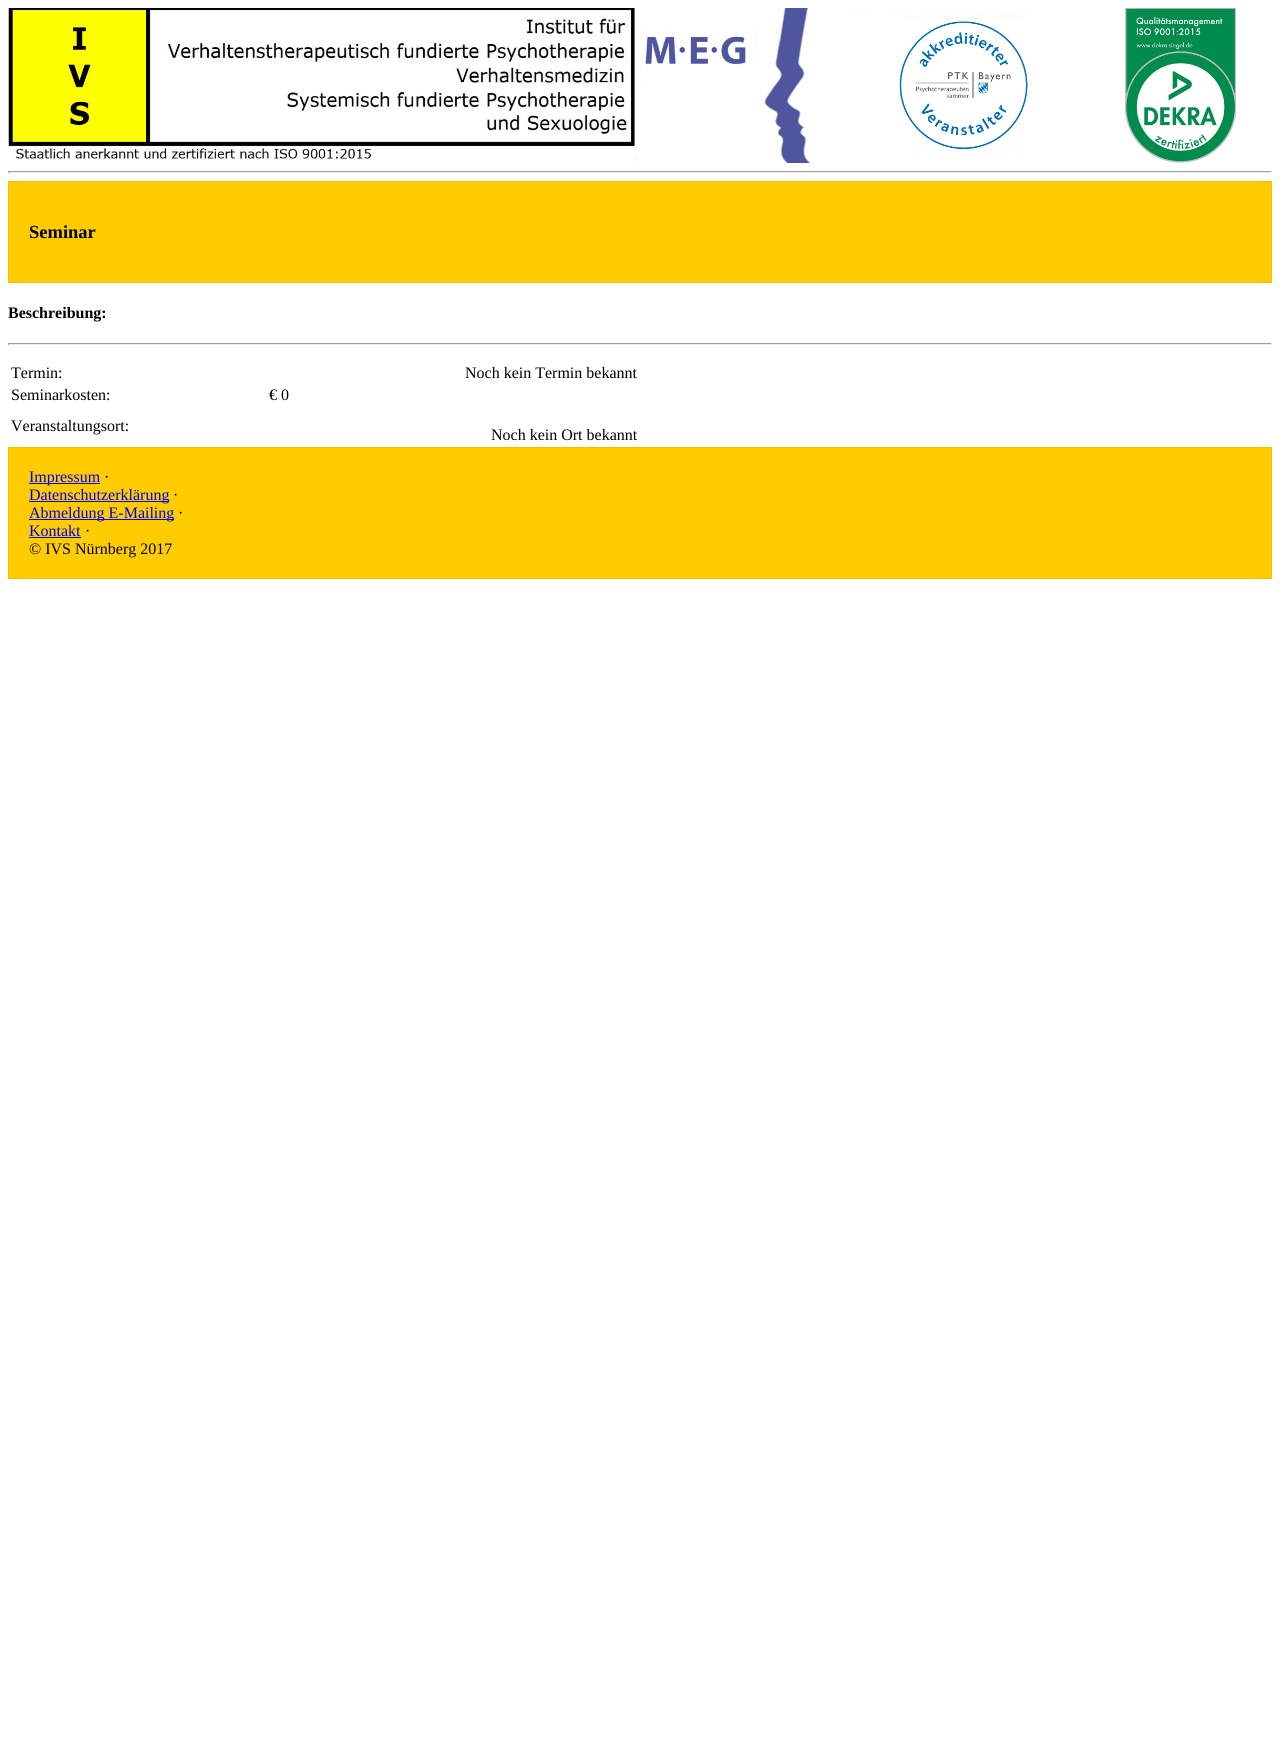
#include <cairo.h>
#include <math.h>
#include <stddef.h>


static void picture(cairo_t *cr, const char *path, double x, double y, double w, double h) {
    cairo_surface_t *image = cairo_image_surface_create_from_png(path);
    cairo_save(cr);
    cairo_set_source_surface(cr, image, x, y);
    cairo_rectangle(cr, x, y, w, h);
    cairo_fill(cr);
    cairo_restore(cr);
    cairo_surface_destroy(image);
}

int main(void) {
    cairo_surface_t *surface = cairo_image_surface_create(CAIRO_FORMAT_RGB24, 1280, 1737);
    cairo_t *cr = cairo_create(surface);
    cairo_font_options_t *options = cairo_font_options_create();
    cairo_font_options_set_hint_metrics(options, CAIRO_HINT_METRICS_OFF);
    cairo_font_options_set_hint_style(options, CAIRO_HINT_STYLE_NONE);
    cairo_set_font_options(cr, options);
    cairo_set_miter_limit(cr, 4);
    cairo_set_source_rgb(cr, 1, 1, 1);
    cairo_paint(cr);
    picture(cr, "img1.png", 8, 8, 1228, 155);
    cairo_set_source_rgb(cr, 0.624, 0.624, 0.624);
    cairo_rectangle(cr, 8, 171, 1264, 1);
    cairo_fill(cr);
    cairo_set_source_rgb(cr, 0.933, 0.933, 0.933);
    cairo_rectangle(cr, 1271, 171, 1, 2);
    cairo_fill(cr);
    cairo_rectangle(cr, 8, 172, 1264, 1);
    cairo_fill(cr);
    cairo_set_source_rgb(cr, 0.624, 0.624, 0.624);
    cairo_rectangle(cr, 8, 171, 1, 2);
    cairo_fill(cr);
    cairo_set_source_rgb(cr, 1, 0.8, 0);
    cairo_rectangle(cr, 8.5, 181.5, 1263, 101);
    cairo_fill_preserve(cr);
    cairo_set_source_rgb(cr, 0.902, 0.761, 0);
    cairo_set_line_width(cr, 1);
    cairo_stroke(cr);
    cairo_select_font_face(cr, "Liberation Serif", CAIRO_FONT_SLANT_NORMAL, CAIRO_FONT_WEIGHT_BOLD);
    cairo_set_font_size(cr, 18.5);
    cairo_set_source_rgb(cr, 0, 0, 0);
    cairo_move_to(cr, 29, 238);
    cairo_show_text(cr, "Seminar");
    cairo_set_font_size(cr, 16);
    cairo_move_to(cr, 8, 318);
    cairo_show_text(cr, "Beschreibung:");
    cairo_set_source_rgb(cr, 0.624, 0.624, 0.624);
    cairo_rectangle(cr, 8, 343, 1264, 1);
    cairo_fill(cr);
    cairo_set_source_rgb(cr, 0.933, 0.933, 0.933);
    cairo_rectangle(cr, 1271, 343, 1, 2);
    cairo_fill(cr);
    cairo_rectangle(cr, 8, 344, 1264, 1);
    cairo_fill(cr);
    cairo_set_source_rgb(cr, 0.624, 0.624, 0.624);
    cairo_rectangle(cr, 8, 343, 1, 2);
    cairo_fill(cr);
    cairo_select_font_face(cr, "Liberation Serif", CAIRO_FONT_SLANT_NORMAL, CAIRO_FONT_WEIGHT_NORMAL);
    cairo_set_source_rgb(cr, 0, 0, 0);
    cairo_move_to(cr, 11, 378);
    cairo_show_text(cr, "Termin:");
    cairo_move_to(cr, 465, 378);
    cairo_show_text(cr, "Noch kein Termin bekannt");
    cairo_move_to(cr, 11, 400);
    cairo_show_text(cr, "Seminarkosten:");
    cairo_move_to(cr, 269, 400);
    cairo_show_text(cr, "€ 0");
    cairo_move_to(cr, 11, 431);
    cairo_show_text(cr, "Veranstaltungsort:");
    cairo_move_to(cr, 491, 440);
    cairo_show_text(cr, "Noch kein Ort bekannt");
    cairo_set_source_rgb(cr, 1, 0.8, 0);
    cairo_rectangle(cr, 8.5, 447.5, 1263, 131);
    cairo_fill_preserve(cr);
    cairo_set_source_rgb(cr, 0.902, 0.761, 0);
    cairo_stroke(cr);
    cairo_set_source_rgb(cr, 0, 0, 0.933);
    cairo_rectangle(cr, 29, 483, 71, 1);
    cairo_fill(cr);
    cairo_move_to(cr, 29, 482);
    cairo_show_text(cr, "Impressum");
    cairo_set_source_rgb(cr, 0, 0, 0);
    cairo_move_to(cr, 104, 482);
    cairo_show_text(cr, "·");
    cairo_set_source_rgb(cr, 0, 0, 0.933);
    cairo_rectangle(cr, 29, 501, 140, 1);
    cairo_fill(cr);
    cairo_move_to(cr, 29, 500);
    cairo_show_text(cr, "Datenschutzerklärung");
    cairo_set_source_rgb(cr, 0, 0, 0);
    cairo_move_to(cr, 173, 500);
    cairo_show_text(cr, "·");
    cairo_set_source_rgb(cr, 0, 0, 0.933);
    cairo_rectangle(cr, 29, 519, 145, 1);
    cairo_fill(cr);
    cairo_move_to(cr, 29, 518);
    cairo_show_text(cr, "Abmeldung E-Mailing");
    cairo_set_source_rgb(cr, 0, 0, 0);
    cairo_move_to(cr, 178, 518);
    cairo_show_text(cr, "·");
    cairo_set_source_rgb(cr, 0, 0, 0.933);
    cairo_move_to(cr, 29, 536);
    cairo_show_text(cr, "Kontakt");
    cairo_rectangle(cr, 29, 537, 52, 1);
    cairo_fill(cr);
    cairo_set_source_rgb(cr, 0, 0, 0);
    cairo_move_to(cr, 85, 536);
    cairo_show_text(cr, "·");
    cairo_move_to(cr, 29, 554);
    cairo_show_text(cr, "© IVS Nürnberg 2017");
    cairo_surface_write_to_png(surface, "page.png");
    cairo_font_options_destroy(options);
    cairo_destroy(cr);
    cairo_surface_destroy(surface);
    return 0;
}
